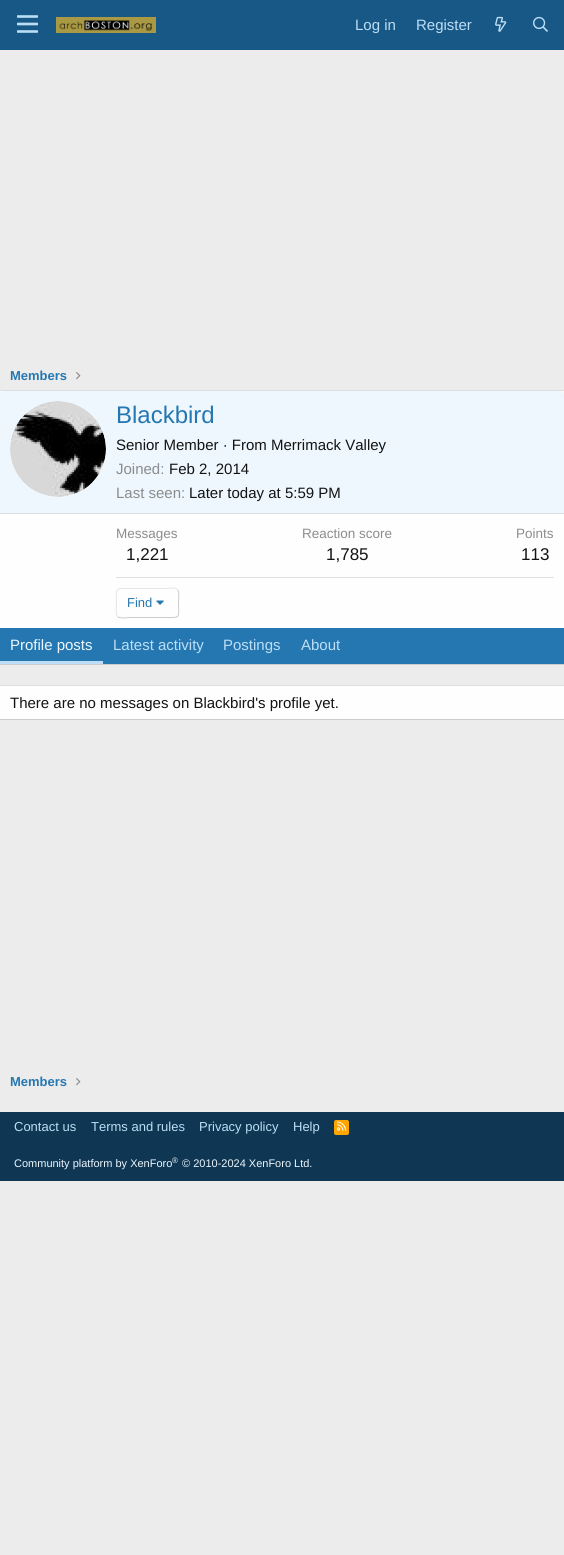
#include <cairo.h>
#include <math.h>
#include <stddef.h>


static void round_rect(cairo_t *cr, double x, double y, double w, double h, double r) {
    cairo_new_sub_path(cr);
    cairo_arc(cr, x + w - r, y + h - r, r, 0, M_PI / 2);
    cairo_arc(cr, x + r, y + h - r, r, M_PI / 2, M_PI);
    cairo_arc(cr, x + r, y + r, r, M_PI, 1.5 * M_PI);
    cairo_arc(cr, x + w - r, y + r, r, 1.5 * M_PI, 2 * M_PI);
    cairo_close_path(cr);
}

static void picture(cairo_t *cr, const char *path, double x, double y, double w, double h) {
    cairo_surface_t *image = cairo_image_surface_create_from_png(path);
    cairo_save(cr);
    cairo_set_source_surface(cr, image, x, y);
    cairo_rectangle(cr, x, y, w, h);
    cairo_fill(cr);
    cairo_restore(cr);
    cairo_surface_destroy(image);
}

int main(void) {
    cairo_surface_t *surface = cairo_image_surface_create(CAIRO_FORMAT_RGB24, 564, 1555);
    cairo_t *cr = cairo_create(surface);
    cairo_font_options_t *options = cairo_font_options_create();
    cairo_font_options_set_hint_metrics(options, CAIRO_HINT_METRICS_OFF);
    cairo_font_options_set_hint_style(options, CAIRO_HINT_STYLE_NONE);
    cairo_set_font_options(cr, options);
    cairo_set_miter_limit(cr, 4);
    cairo_set_source_rgb(cr, 0.925, 0.925, 0.925);
    cairo_paint(cr);
    cairo_set_source_rgb(cr, 0.094, 0.345, 0.525);
    cairo_rectangle(cr, 0, 0, 564, 50);
    cairo_fill(cr);
    picture(cr, "img1.png", 17, 15, 21, 18);
    picture(cr, "img2.png", 56, 17, 100, 16);
    cairo_select_font_face(cr, "Liberation Sans", CAIRO_FONT_SLANT_NORMAL, CAIRO_FONT_WEIGHT_NORMAL);
    cairo_set_font_size(cr, 15);
    cairo_set_source_rgb(cr, 0.737, 0.871, 0.961);
    cairo_move_to(cr, 355, 30);
    cairo_show_text(cr, "Log in");
    cairo_move_to(cr, 416, 30);
    cairo_show_text(cr, "Register");
    picture(cr, "img3.png", 495, 16, 12, 16);
    picture(cr, "img4.png", 533, 16, 15, 16);
    cairo_select_font_face(cr, "Liberation Sans", CAIRO_FONT_SLANT_NORMAL, CAIRO_FONT_WEIGHT_BOLD);
    cairo_set_font_size(cr, 13);
    cairo_set_source_rgb(cr, 0.145, 0.467, 0.694);
    cairo_move_to(cr, 10, 380);
    cairo_show_text(cr, "Members");
    picture(cr, "img5.png", 76, 372, 5, 8);
    cairo_set_source_rgb(cr, 0.996, 0.996, 0.996);
    cairo_rectangle(cr, 0, 391, 564, 237);
    cairo_fill(cr);
    cairo_set_source_rgb(cr, 0.875, 0.875, 0.875);
    cairo_rectangle(cr, 0, 390, 564, 1);
    cairo_fill(cr);
    cairo_set_source_rgb(cr, 0.796, 0.796, 0.796);
    cairo_rectangle(cr, 0, 664, 564, 1);
    cairo_fill(cr);
    cairo_set_source_rgb(cr, 0.929, 0.965, 0.992);
    cairo_new_path(cr);
    cairo_move_to(cr, 3, 391);
    cairo_line_to(cr, 561, 391);
    cairo_curve_to(cr, 562.5, 391, 564, 392.5, 564, 394);
    cairo_line_to(cr, 564, 514);
    cairo_line_to(cr, 0, 514);
    cairo_line_to(cr, 0, 394);
    cairo_curve_to(cr, 0, 392.5, 1.5, 391, 3, 391);
    cairo_close_path(cr);
    cairo_fill(cr);
    cairo_set_source_rgb(cr, 0.875, 0.875, 0.875);
    cairo_rectangle(cr, 0, 513, 564, 1);
    cairo_fill(cr);
    cairo_set_source_rgb(cr, 0.996, 0.996, 0.996);
    cairo_arc(cr, 58, 449, 48, 0, 2 * M_PI);
    cairo_fill(cr);
    picture(cr, "img6.png", 10, 401, 96, 96);
    cairo_select_font_face(cr, "Liberation Sans", CAIRO_FONT_SLANT_NORMAL, CAIRO_FONT_WEIGHT_NORMAL);
    cairo_set_font_size(cr, 24);
    cairo_set_source_rgb(cr, 0.145, 0.467, 0.694);
    cairo_move_to(cr, 116, 423);
    cairo_show_text(cr, "Blackbird");
    cairo_set_font_size(cr, 15);
    cairo_set_source_rgb(cr, 0.078, 0.078, 0.078);
    cairo_move_to(cr, 116, 450);
    cairo_show_text(cr, "Senior Member · From Merrimack Valley");
    cairo_set_source_rgb(cr, 0.549, 0.549, 0.549);
    cairo_move_to(cr, 116, 474);
    cairo_show_text(cr, "Joined:");
    cairo_set_source_rgb(cr, 0.078, 0.078, 0.078);
    cairo_move_to(cr, 169, 474);
    cairo_show_text(cr, "Feb 2, 2014");
    cairo_set_source_rgb(cr, 0.549, 0.549, 0.549);
    cairo_move_to(cr, 116, 498);
    cairo_show_text(cr, "Last seen:");
    cairo_set_source_rgb(cr, 0.078, 0.078, 0.078);
    cairo_move_to(cr, 189, 498);
    cairo_show_text(cr, "Later today at 5:59 PM");
    cairo_set_font_size(cr, 13.5);
    cairo_set_source_rgb(cr, 0.549, 0.549, 0.549);
    cairo_move_to(cr, 116, 538);
    cairo_show_text(cr, "Messages");
    cairo_set_font_size(cr, 17);
    cairo_set_source_rgb(cr, 0.078, 0.078, 0.078);
    cairo_move_to(cr, 126, 560);
    cairo_show_text(cr, "1,221");
    cairo_set_font_size(cr, 13.5);
    cairo_set_source_rgb(cr, 0.549, 0.549, 0.549);
    cairo_move_to(cr, 302, 538);
    cairo_show_text(cr, "Reaction score");
    cairo_set_font_size(cr, 17);
    cairo_set_source_rgb(cr, 0.078, 0.078, 0.078);
    cairo_move_to(cr, 326, 560);
    cairo_show_text(cr, "1,785");
    cairo_set_font_size(cr, 13.5);
    cairo_set_source_rgb(cr, 0.549, 0.549, 0.549);
    cairo_move_to(cr, 516, 538);
    cairo_show_text(cr, "Points");
    cairo_set_font_size(cr, 17);
    cairo_set_source_rgb(cr, 0.078, 0.078, 0.078);
    cairo_move_to(cr, 521, 560);
    cairo_show_text(cr, "113");
    cairo_set_source_rgb(cr, 0.875, 0.875, 0.875);
    cairo_rectangle(cr, 116, 577, 438, 1);
    cairo_fill(cr);
    cairo_new_path(cr);
    cairo_move_to(cr, 177.5, 589.5);
    cairo_curve_to(cr, 179.5, 591.5, 178.5, 600, 178.5, 603);
    cairo_curve_to(cr, 178.5, 618.5, 181, 617.5, 166, 617.5);
    cairo_line_to(cr, 129, 617.5);
    cairo_curve_to(cr, 128.5, 617.5, 120, 619, 117.5, 616.5);
    cairo_set_source_rgb(cr, 0.796, 0.796, 0.796);
    cairo_set_line_width(cr, 1);
    cairo_stroke(cr);
    cairo_new_path(cr);
    cairo_move_to(cr, 117.5, 616.5);
    cairo_curve_to(cr, 115.5, 614.5, 116.5, 606, 116.5, 603);
    cairo_curve_to(cr, 116.5, 587.5, 114, 588.5, 129, 588.5);
    cairo_line_to(cr, 166, 588.5);
    cairo_curve_to(cr, 166.5, 588.5, 175, 587, 177.5, 589.5);
    cairo_set_source_rgb(cr, 0.898, 0.898, 0.898);
    cairo_stroke(cr);
    cairo_set_font_size(cr, 13);
    cairo_set_source_rgb(cr, 0.145, 0.467, 0.694);
    cairo_move_to(cr, 127, 607);
    cairo_show_text(cr, "Find");
    picture(cr, "img7.png", 156, 600, 8, 5);
    cairo_rectangle(cr, 0, 628, 564, 36);
    cairo_fill(cr);
    cairo_set_source_rgb(cr, 0.737, 0.871, 0.961);
    cairo_rectangle(cr, 0, 661, 103, 3);
    cairo_fill(cr);
    cairo_set_font_size(cr, 15);
    cairo_set_source_rgb(cr, 0.929, 0.965, 0.992);
    cairo_move_to(cr, 10, 650);
    cairo_show_text(cr, "Profile posts");
    cairo_set_source_rgb(cr, 0.737, 0.871, 0.961);
    cairo_move_to(cr, 113, 650);
    cairo_show_text(cr, "Latest activity");
    cairo_move_to(cr, 223, 650);
    cairo_show_text(cr, "Postings");
    cairo_move_to(cr, 301, 650);
    cairo_show_text(cr, "About");
    cairo_set_source_rgb(cr, 0.996, 0.996, 0.996);
    cairo_rectangle(cr, 0, 686, 564, 33);
    cairo_fill(cr);
    cairo_set_source_rgb(cr, 0.875, 0.875, 0.875);
    cairo_rectangle(cr, 0, 685, 564, 1);
    cairo_fill(cr);
    cairo_set_source_rgb(cr, 0.796, 0.796, 0.796);
    cairo_rectangle(cr, 0, 719, 564, 1);
    cairo_fill(cr);
    cairo_set_source_rgb(cr, 0.078, 0.078, 0.078);
    cairo_move_to(cr, 10, 708);
    cairo_show_text(cr, "There are no messages on Blackbird's profile yet.");
    cairo_select_font_face(cr, "Liberation Sans", CAIRO_FONT_SLANT_NORMAL, CAIRO_FONT_WEIGHT_BOLD);
    cairo_set_font_size(cr, 13);
    cairo_set_source_rgb(cr, 0.145, 0.467, 0.694);
    cairo_move_to(cr, 10, 1086);
    cairo_show_text(cr, "Members");
    picture(cr, "img5.png", 76, 1078, 5, 8);
    cairo_set_source_rgb(cr, 0.059, 0.212, 0.322);
    cairo_rectangle(cr, 0, 1112, 564, 69);
    cairo_fill(cr);
    cairo_select_font_face(cr, "Liberation Sans", CAIRO_FONT_SLANT_NORMAL, CAIRO_FONT_WEIGHT_NORMAL);
    cairo_set_source_rgb(cr, 0.737, 0.871, 0.961);
    cairo_move_to(cr, 14, 1131);
    cairo_show_text(cr, "Contact us");
    cairo_move_to(cr, 91, 1131);
    cairo_show_text(cr, "Terms and rules");
    cairo_move_to(cr, 199, 1131);
    cairo_show_text(cr, "Privacy policy");
    cairo_move_to(cr, 293, 1131);
    cairo_show_text(cr, "Help");
    cairo_set_source_rgb(cr, 1, 0.647, 0);
    round_rect(cr, 334, 1120, 15, 15, 2);
    cairo_fill(cr);
    picture(cr, "img8.png", 337, 1121, 10, 10);
    cairo_set_font_size(cr, 11);
    cairo_set_source_rgb(cr, 0.929, 0.965, 0.992);
    cairo_move_to(cr, 14, 1167);
    cairo_show_text(cr, "Community platform by XenForo");
    cairo_set_font_size(cr, 8);
    cairo_move_to(cr, 172, 1163);
    cairo_show_text(cr, "®");
    cairo_set_font_size(cr, 11);
    cairo_move_to(cr, 182, 1167);
    cairo_show_text(cr, "© 2010-2024 XenForo Ltd.");
    cairo_surface_write_to_png(surface, "page.png");
    cairo_font_options_destroy(options);
    cairo_destroy(cr);
    cairo_surface_destroy(surface);
    return 0;
}
